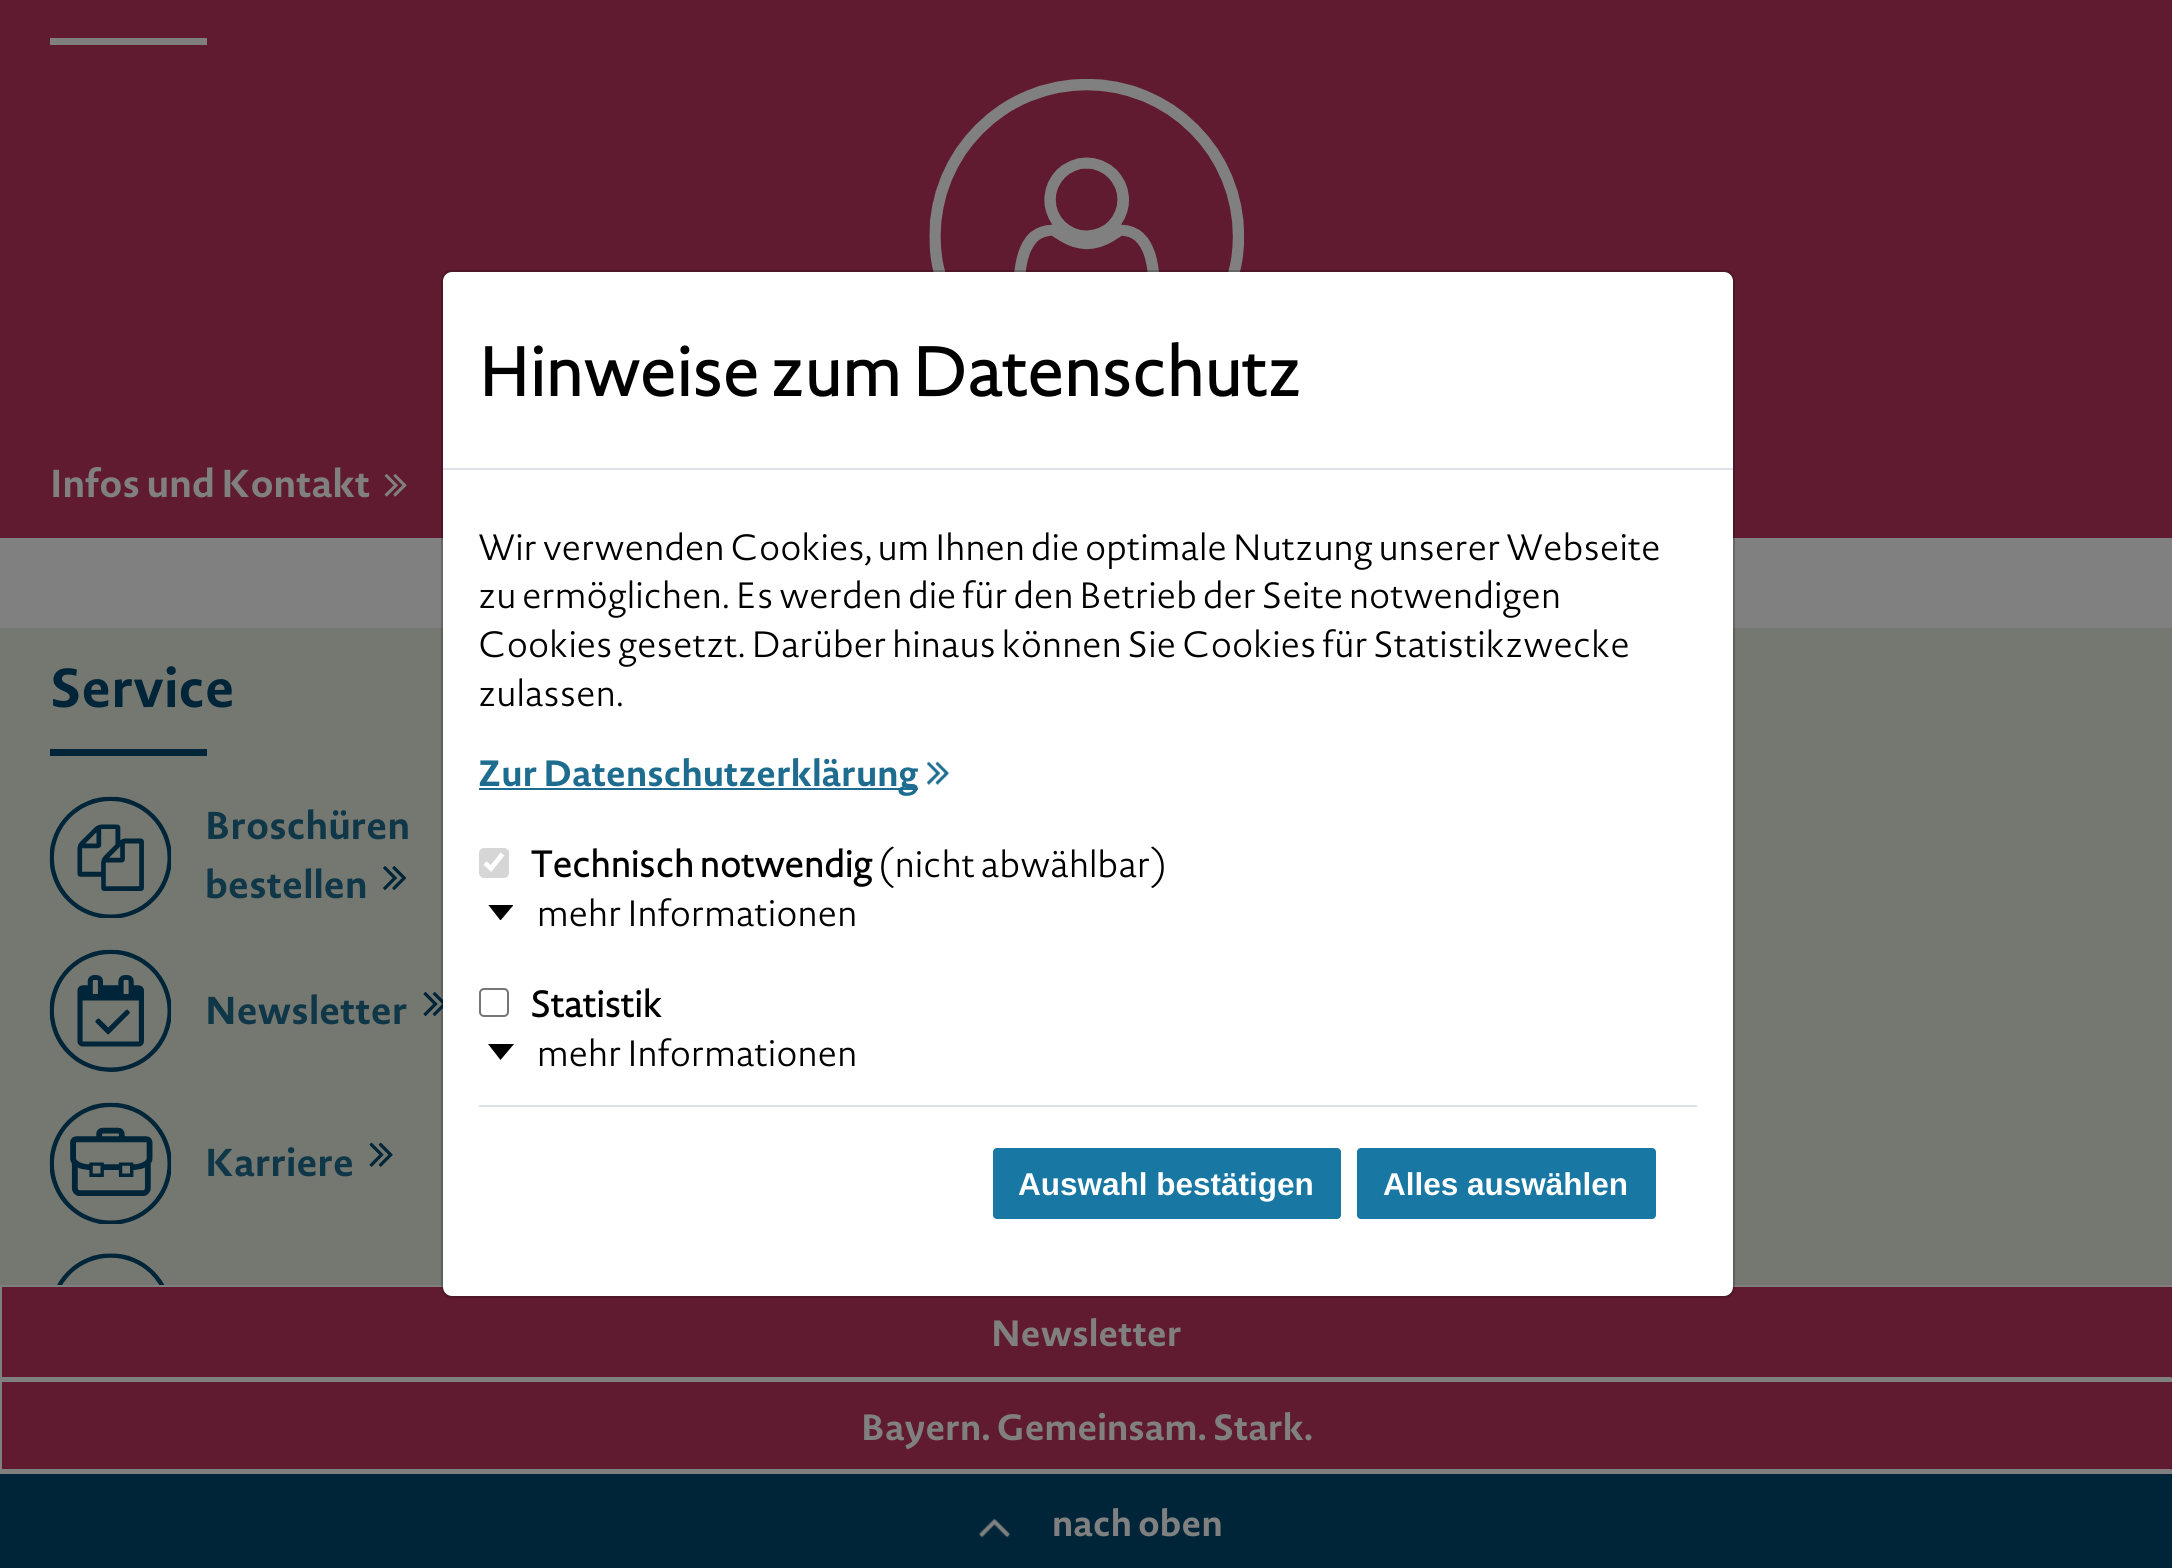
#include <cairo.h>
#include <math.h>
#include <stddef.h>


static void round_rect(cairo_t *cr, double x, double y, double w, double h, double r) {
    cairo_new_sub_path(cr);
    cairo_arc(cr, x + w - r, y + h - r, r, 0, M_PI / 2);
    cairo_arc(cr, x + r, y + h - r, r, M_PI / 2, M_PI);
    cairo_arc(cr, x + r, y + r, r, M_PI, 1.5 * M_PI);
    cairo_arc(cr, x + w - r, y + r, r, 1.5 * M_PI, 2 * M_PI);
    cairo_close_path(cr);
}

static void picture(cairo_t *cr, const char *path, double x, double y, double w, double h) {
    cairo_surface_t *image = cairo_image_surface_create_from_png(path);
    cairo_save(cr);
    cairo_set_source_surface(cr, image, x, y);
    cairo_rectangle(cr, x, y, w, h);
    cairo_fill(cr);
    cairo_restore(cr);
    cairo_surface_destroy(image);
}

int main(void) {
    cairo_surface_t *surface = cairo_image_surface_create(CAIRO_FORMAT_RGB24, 2172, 1568);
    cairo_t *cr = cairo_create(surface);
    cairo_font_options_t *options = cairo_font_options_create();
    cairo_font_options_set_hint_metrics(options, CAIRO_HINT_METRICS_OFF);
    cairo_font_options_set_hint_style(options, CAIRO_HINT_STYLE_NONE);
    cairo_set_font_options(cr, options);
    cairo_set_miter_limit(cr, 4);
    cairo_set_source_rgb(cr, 0.502, 0.502, 0.502);
    cairo_paint(cr);
    cairo_set_source_rgb(cr, 0.38, 0.106, 0.188);
    cairo_rectangle(cr, 0, 0, 2172, 538);
    cairo_fill(cr);
    cairo_set_source_rgb(cr, 0.455, 0.471, 0.443);
    cairo_rectangle(cr, 0, 628, 2172, 751);
    cairo_fill(cr);
    cairo_set_source_rgb(cr, 0.502, 0.502, 0.502);
    cairo_rectangle(cr, 0, 1285, 2172, 2);
    cairo_fill(cr);
    cairo_set_source_rgb(cr, 0.38, 0.106, 0.188);
    cairo_rectangle(cr, 2, 1289, 2169, 88);
    cairo_fill(cr);
    cairo_rectangle(cr, 0, 1287, 2172, 2);
    cairo_fill(cr);
    cairo_set_source_rgb(cr, 1, 1, 1);
    round_rect(cr, 443, 272, 1290, 1024, 9);
    cairo_fill(cr);
    picture(cr, "img2.png", 929, 79, 315, 193);
    picture(cr, "img7.png", 423, 992, 20, 24);
    round_rect(cr, 442, 271, 1292, 1026, 10);
    cairo_set_source_rgba(cr, 0, 0, 0, 0.2);
    cairo_stroke(cr);
    cairo_set_source_rgb(cr, 0.871, 0.886, 0.902);
    cairo_rectangle(cr, 443, 468, 1290, 2);
    cairo_fill(cr);
    cairo_select_font_face(cr, "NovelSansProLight", CAIRO_FONT_SLANT_NORMAL, CAIRO_FONT_WEIGHT_BOLD);
    cairo_set_font_size(cr, 67.5);
    cairo_set_source_rgb(cr, 0, 0, 0);
    cairo_move_to(cr, 478, 396);
    cairo_show_text(cr, "Hinweise zum Datenschutz");
    cairo_select_font_face(cr, "NovelSansProLight Light", CAIRO_FONT_SLANT_NORMAL, CAIRO_FONT_WEIGHT_NORMAL);
    cairo_set_font_size(cr, 36);
    cairo_move_to(cr, 478, 560);
    cairo_show_text(cr, "Wir verwenden Cookies, um Ihnen die optimale Nutzung unserer Webseite");
    cairo_move_to(cr, 478, 608);
    cairo_show_text(cr, "zu ermöglichen. Es werden die für den Betrieb der Seite notwendigen");
    cairo_move_to(cr, 478, 657);
    cairo_show_text(cr, "Cookies gesetzt. Darüber hinaus können Sie Cookies für Statistikzwecke");
    cairo_move_to(cr, 478, 706);
    cairo_show_text(cr, "zulassen.");
    cairo_set_source_rgb(cr, 0.118, 0.427, 0.565);
    cairo_rectangle(cr, 479, 788, 439, 2);
    cairo_fill(cr);
    cairo_select_font_face(cr, "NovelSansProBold", CAIRO_FONT_SLANT_NORMAL, CAIRO_FONT_WEIGHT_BOLD);
    cairo_move_to(cr, 478, 786);
    cairo_show_text(cr, "Zur Datenschutzerklärung");
    picture(cr, "img1.png", 927, 761, 22, 24);
    cairo_set_source_rgb(cr, 0.839, 0.839, 0.839);
    round_rect(cr, 479, 848, 30, 30, 5);
    cairo_fill(cr);
    cairo_new_path(cr);
    cairo_move_to(cr, 485, 863);
    cairo_line_to(cr, 491, 868.5);
    cairo_line_to(cr, 502.5, 854);
    cairo_set_source_rgb(cr, 1, 1, 1);
    cairo_set_line_width(cr, 4.7);
    cairo_stroke(cr);
    cairo_select_font_face(cr, "NovelSansProLight", CAIRO_FONT_SLANT_NORMAL, CAIRO_FONT_WEIGHT_BOLD);
    cairo_set_source_rgb(cr, 0, 0, 0);
    cairo_move_to(cr, 530, 877);
    cairo_show_text(cr, "Technisch notwendig");
    cairo_select_font_face(cr, "NovelSansProLight Light", CAIRO_FONT_SLANT_NORMAL, CAIRO_FONT_WEIGHT_NORMAL);
    cairo_move_to(cr, 878, 877);
    cairo_show_text(cr, "(nicht abwählbar)");
    cairo_save(cr);
    cairo_rectangle(cr, 488, 905, 25, 15);
    cairo_clip(cr);
    cairo_new_path(cr);
    cairo_move_to(cr, 500.5, 920.5);
    cairo_line_to(cr, 488, 904.5);
    cairo_line_to(cr, 514, 904.5);
    cairo_close_path(cr);
    cairo_fill(cr);
    cairo_restore(cr);
    cairo_move_to(cr, 537, 926);
    cairo_show_text(cr, "mehr Informationen");
    round_rect(cr, 480, 989, 28, 27, 4);
    cairo_set_source_rgb(cr, 0.463, 0.463, 0.463);
    cairo_set_line_width(cr, 2);
    cairo_stroke(cr);
    cairo_select_font_face(cr, "NovelSansProLight", CAIRO_FONT_SLANT_NORMAL, CAIRO_FONT_WEIGHT_BOLD);
    cairo_set_source_rgb(cr, 0, 0, 0);
    cairo_move_to(cr, 530, 1017);
    cairo_show_text(cr, "Statistik");
    cairo_new_path(cr);
    cairo_move_to(cr, 500.5, 1060);
    cairo_line_to(cr, 488, 1044);
    cairo_line_to(cr, 514, 1044);
    cairo_close_path(cr);
    cairo_fill(cr);
    cairo_select_font_face(cr, "NovelSansProLight Light", CAIRO_FONT_SLANT_NORMAL, CAIRO_FONT_WEIGHT_NORMAL);
    cairo_move_to(cr, 537, 1066);
    cairo_show_text(cr, "mehr Informationen");
    cairo_set_source_rgb(cr, 0.871, 0.886, 0.902);
    cairo_rectangle(cr, 479, 1105, 1218, 2);
    cairo_fill(cr);
    cairo_set_source_rgb(cr, 0.098, 0.467, 0.643);
    round_rect(cr, 990.5, 1145.5, 353, 76, 6.5);
    cairo_fill_preserve(cr);
    cairo_set_source_rgb(cr, 1, 1, 1);
    cairo_set_line_width(cr, 5);
    cairo_stroke(cr);
    cairo_select_font_face(cr, "Liberation Sans", CAIRO_FONT_SLANT_NORMAL, CAIRO_FONT_WEIGHT_BOLD);
    cairo_set_font_size(cr, 31.5);
    cairo_move_to(cr, 1018, 1195);
    cairo_show_text(cr, "Auswahl bestätigen");
    cairo_set_source_rgb(cr, 0.098, 0.467, 0.643);
    round_rect(cr, 1354.5, 1145.5, 304, 76, 6.5);
    cairo_fill_preserve(cr);
    cairo_set_source_rgb(cr, 1, 1, 1);
    cairo_stroke(cr);
    cairo_move_to(cr, 1383, 1195);
    cairo_show_text(cr, "Alles auswählen");
    cairo_set_source_rgb(cr, 0.502, 0.502, 0.502);
    cairo_rectangle(cr, 50, 38, 157, 7);
    cairo_fill(cr);
    cairo_select_font_face(cr, "NovelSansProBold", CAIRO_FONT_SLANT_NORMAL, CAIRO_FONT_WEIGHT_BOLD);
    cairo_set_font_size(cr, 38.25);
    cairo_move_to(cr, 50, 497);
    cairo_show_text(cr, "Infos und Kontakt");
    picture(cr, "img3.png", 384, 474, 23, 23);
    cairo_set_font_size(cr, 54);
    cairo_set_source_rgb(cr, 0, 0.145, 0.224);
    cairo_move_to(cr, 50, 707);
    cairo_show_text(cr, "Service");
    cairo_rectangle(cr, 50, 749, 157, 7);
    cairo_fill(cr);
    picture(cr, "img4.png", 49, 796, 122, 122);
    cairo_set_font_size(cr, 38.25);
    cairo_set_source_rgb(cr, 0.059, 0.216, 0.282);
    cairo_move_to(cr, 205, 839);
    cairo_show_text(cr, "Broschüren");
    cairo_move_to(cr, 205, 898);
    cairo_show_text(cr, "bestellen");
    picture(cr, "img5.png", 383, 866, 24, 24);
    picture(cr, "img6.png", 49, 949, 122, 123);
    cairo_move_to(cr, 205, 1024);
    cairo_show_text(cr, "Newsletter");
    picture(cr, "img8.png", 49, 1102, 122, 122);
    cairo_move_to(cr, 205, 1176);
    cairo_show_text(cr, "Karriere");
    picture(cr, "img9.png", 369, 1142, 24, 25);
    picture(cr, "img10.png", 57, 1253, 108, 32);
    cairo_set_source_rgb(cr, 0.38, 0.106, 0.188);
    cairo_new_path(cr);
    cairo_move_to(cr, 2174, 1287);
    cairo_line_to(cr, 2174, 1382);
    cairo_line_to(cr, 2171, 1377);
    cairo_line_to(cr, 2171, 1289);
    cairo_close_path(cr);
    cairo_fill(cr);
    cairo_set_source_rgb(cr, 0.502, 0.502, 0.502);
    cairo_new_path(cr);
    cairo_move_to(cr, 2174, 1382);
    cairo_line_to(cr, 0, 1382);
    cairo_line_to(cr, 2, 1377);
    cairo_line_to(cr, 2171, 1377);
    cairo_close_path(cr);
    cairo_fill(cr);
    cairo_rectangle(cr, 0, 1287, 2, 95);
    cairo_fill(cr);
    cairo_set_font_size(cr, 36);
    cairo_move_to(cr, 991, 1346);
    cairo_show_text(cr, "Newsletter");
    cairo_set_source_rgb(cr, 0.38, 0.106, 0.188);
    cairo_rectangle(cr, 2, 1384, 2169, 85);
    cairo_fill(cr);
    cairo_rectangle(cr, 0, 1382, 2172, 2);
    cairo_fill(cr);
    cairo_new_path(cr);
    cairo_move_to(cr, 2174, 1382);
    cairo_line_to(cr, 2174, 1474);
    cairo_line_to(cr, 2171, 1469);
    cairo_line_to(cr, 2171, 1384);
    cairo_close_path(cr);
    cairo_fill(cr);
    cairo_set_source_rgb(cr, 0.502, 0.502, 0.502);
    cairo_new_path(cr);
    cairo_move_to(cr, 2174, 1474);
    cairo_line_to(cr, 0, 1474);
    cairo_line_to(cr, 2, 1469);
    cairo_line_to(cr, 2171, 1469);
    cairo_close_path(cr);
    cairo_fill(cr);
    cairo_rectangle(cr, 0, 1382, 2, 2);
    cairo_fill(cr);
    cairo_move_to(cr, 861, 1440);
    cairo_show_text(cr, "Bayern. Gemeinsam. Stark.");
    cairo_set_source_rgb(cr, 0, 0.145, 0.224);
    cairo_rectangle(cr, 0, 1474, 2172, 94);
    cairo_fill(cr);
    picture(cr, "img11.png", 978, 1518, 32, 20);
    cairo_set_source_rgb(cr, 0.502, 0.502, 0.502);
    cairo_move_to(cr, 1052, 1536);
    cairo_show_text(cr, "nach oben");
    cairo_surface_write_to_png(surface, "page.png");
    cairo_font_options_destroy(options);
    cairo_destroy(cr);
    cairo_surface_destroy(surface);
    return 0;
}
